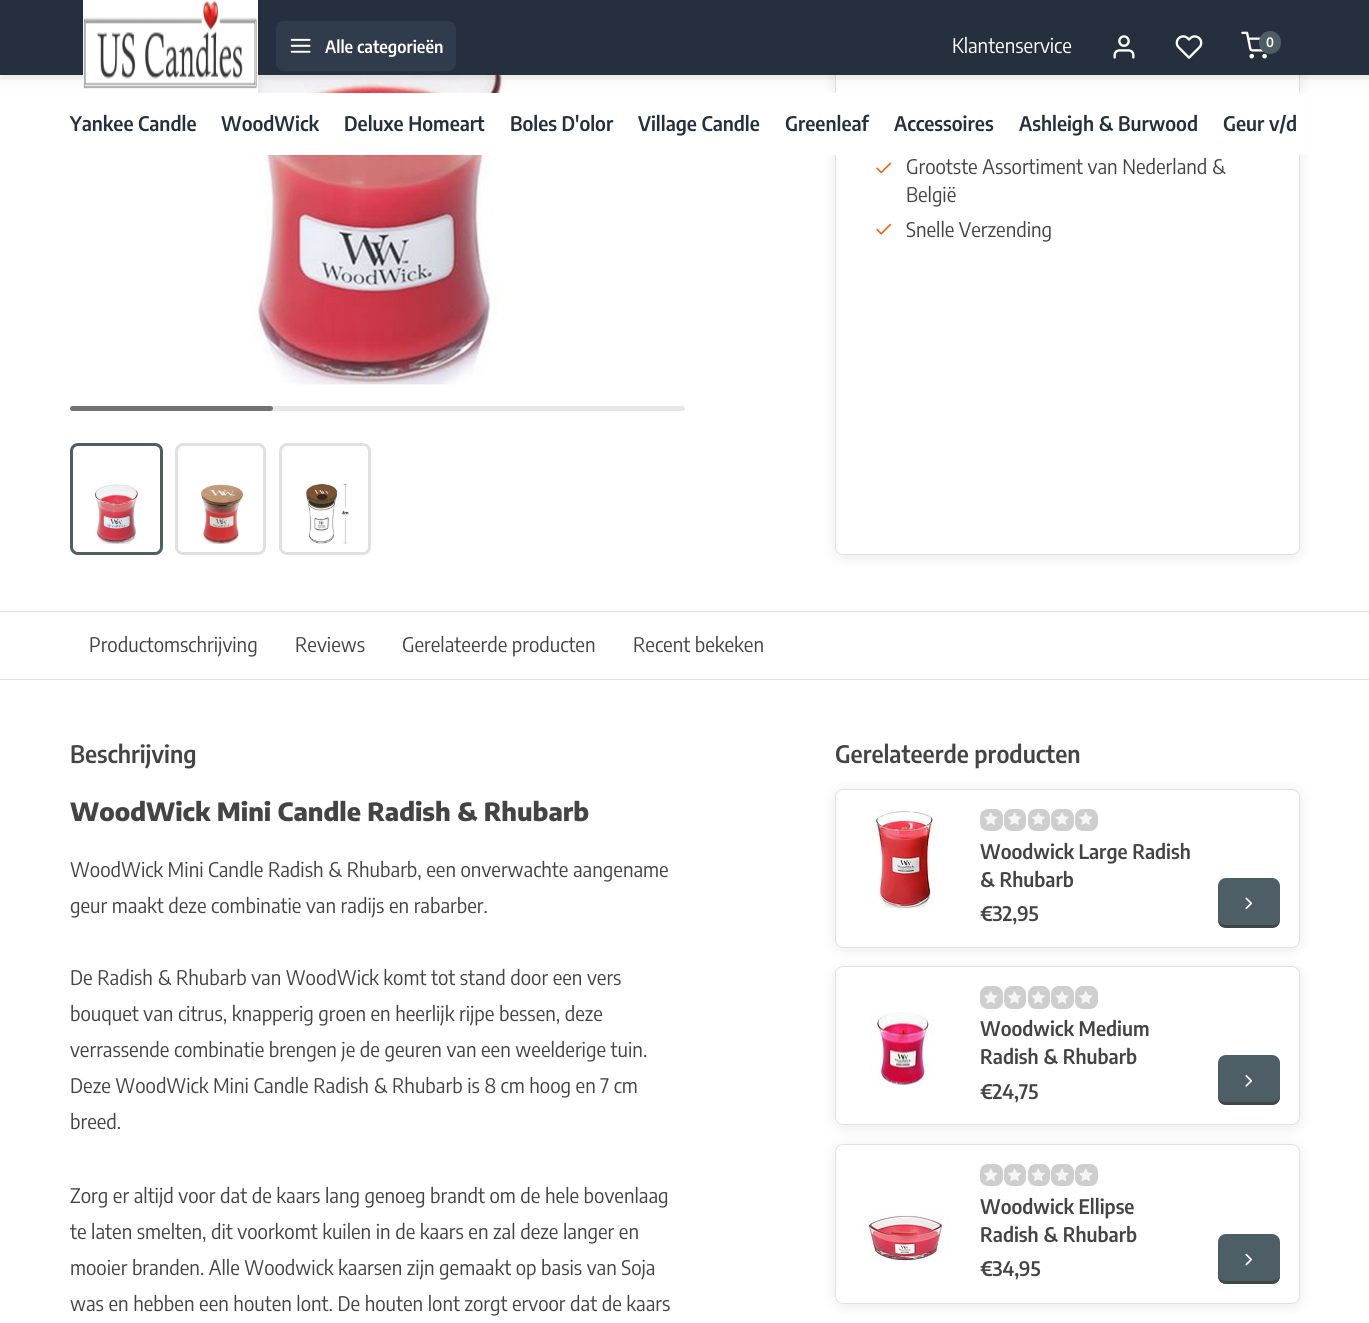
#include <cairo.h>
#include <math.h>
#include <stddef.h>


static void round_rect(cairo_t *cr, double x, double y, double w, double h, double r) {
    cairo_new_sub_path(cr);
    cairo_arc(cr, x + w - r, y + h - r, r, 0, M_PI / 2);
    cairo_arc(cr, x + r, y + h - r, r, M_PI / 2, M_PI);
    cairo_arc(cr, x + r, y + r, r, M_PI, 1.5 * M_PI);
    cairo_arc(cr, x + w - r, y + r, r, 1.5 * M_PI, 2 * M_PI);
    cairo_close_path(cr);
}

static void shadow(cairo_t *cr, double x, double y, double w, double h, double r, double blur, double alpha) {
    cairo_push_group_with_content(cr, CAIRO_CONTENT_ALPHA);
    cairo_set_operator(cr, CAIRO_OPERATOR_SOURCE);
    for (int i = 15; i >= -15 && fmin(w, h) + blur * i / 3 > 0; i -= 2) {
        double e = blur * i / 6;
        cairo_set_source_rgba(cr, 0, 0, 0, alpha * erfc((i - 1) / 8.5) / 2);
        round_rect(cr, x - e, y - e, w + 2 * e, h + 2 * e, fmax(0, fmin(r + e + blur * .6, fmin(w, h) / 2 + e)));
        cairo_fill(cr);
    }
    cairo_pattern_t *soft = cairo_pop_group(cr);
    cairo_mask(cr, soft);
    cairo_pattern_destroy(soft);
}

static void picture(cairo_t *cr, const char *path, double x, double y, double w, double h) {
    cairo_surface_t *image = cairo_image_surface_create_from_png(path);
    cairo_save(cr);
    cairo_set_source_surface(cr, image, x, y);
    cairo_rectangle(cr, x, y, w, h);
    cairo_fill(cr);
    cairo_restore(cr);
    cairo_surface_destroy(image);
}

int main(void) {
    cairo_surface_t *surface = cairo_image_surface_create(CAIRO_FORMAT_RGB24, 1369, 1323);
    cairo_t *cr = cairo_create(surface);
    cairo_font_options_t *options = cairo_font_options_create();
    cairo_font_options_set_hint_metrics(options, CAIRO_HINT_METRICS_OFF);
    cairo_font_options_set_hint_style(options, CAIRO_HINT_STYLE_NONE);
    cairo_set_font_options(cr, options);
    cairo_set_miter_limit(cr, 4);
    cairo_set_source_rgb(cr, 1, 1, 1);
    cairo_paint(cr);
    picture(cr, "img6.png", 247, 75, 258, 310);
    cairo_save(cr);
    cairo_set_fill_rule(cr, CAIRO_FILL_RULE_EVEN_ODD);
    cairo_new_path(cr);
    cairo_move_to(cr, 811, 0);
    cairo_line_to(cr, 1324, 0);
    cairo_line_to(cr, 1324, 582);
    cairo_line_to(cr, 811, 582);
    cairo_close_path(cr);
    cairo_move_to(cr, 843, -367);
    cairo_line_to(cr, 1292, -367);
    cairo_curve_to(cr, 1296.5, -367, 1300, -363.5, 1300, -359);
    cairo_line_to(cr, 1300, 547);
    cairo_curve_to(cr, 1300, 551.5, 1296.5, 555, 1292, 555);
    cairo_line_to(cr, 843, 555);
    cairo_curve_to(cr, 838.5, 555, 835, 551.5, 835, 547);
    cairo_line_to(cr, 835, -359);
    cairo_curve_to(cr, 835, -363.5, 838.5, -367, 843, -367);
    cairo_close_path(cr);
    cairo_clip(cr);
    cairo_set_source_rgb(cr, 0, 0, 0);
    shadow(cr, 835, -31, 465, 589, 8, 7.5, 0.08);
    cairo_restore(cr);
    round_rect(cr, 835.5, -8.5, 464, 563, 7.5);
    cairo_set_source_rgb(cr, 0.882, 0.882, 0.882);
    cairo_set_line_width(cr, 1);
    cairo_stroke(cr);
    cairo_set_source_rgb(cr, 0, 0, 0);
    shadow(cr, 0, 6, 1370, 75, 0, 6, 0.05);
    cairo_set_source_rgb(cr, 0.149, 0.184, 0.239);
    cairo_rectangle(cr, 0, 0, 1369, 75);
    cairo_fill(cr);
    cairo_save(cr);
    cairo_rectangle(cr, 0, 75, 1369, 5);
    cairo_clip(cr);
    cairo_set_source_rgb(cr, 0, 0, 0);
    shadow(cr, 0, 4, 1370, 75, 0, 2.5, 0.05);
    cairo_restore(cr);
    cairo_set_source_rgb(cr, 1, 1, 1);
    cairo_rectangle(cr, 83, 0, 175, 93);
    cairo_fill(cr);
    picture(cr, "img1.png", 83, 1, 174, 88);
    cairo_set_source_rgb(cr, 0.188, 0.231, 0.298);
    round_rect(cr, 276, 21, 180, 50, 8);
    cairo_fill(cr);
    picture(cr, "img2.png", 290, 38, 21, 15);
    cairo_select_font_face(cr, "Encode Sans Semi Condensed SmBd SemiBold", CAIRO_FONT_SLANT_NORMAL, CAIRO_FONT_WEIGHT_NORMAL);
    cairo_set_font_size(cr, 17);
    cairo_set_source_rgb(cr, 1, 1, 1);
    cairo_move_to(cr, 325, 53);
    cairo_show_text(cr, "Alle categorieën");
    cairo_select_font_face(cr, "Encode Sans Semi Condensed", CAIRO_FONT_SLANT_NORMAL, CAIRO_FONT_WEIGHT_NORMAL);
    cairo_set_font_size(cr, 20);
    cairo_move_to(cr, 952, 53);
    cairo_show_text(cr, "Klantenservice");
    picture(cr, "img3.png", 1113, 35, 22, 24);
    picture(cr, "img4.png", 1175, 35, 28, 24);
    picture(cr, "img5.png", 1241, 31, 26, 28);
    cairo_set_source_rgb(cr, 0.306, 0.369, 0.404);
    round_rect(cr, 1259, 31, 22, 23, 11);
    cairo_fill(cr);
    cairo_select_font_face(cr, "Encode Sans Semi Condensed SmBd SemiBold", CAIRO_FONT_SLANT_NORMAL, CAIRO_FONT_WEIGHT_NORMAL);
    cairo_set_font_size(cr, 13);
    cairo_set_source_rgb(cr, 1, 1, 1);
    cairo_move_to(cr, 1266, 47);
    cairo_show_text(cr, "0");
    cairo_rectangle(cr, 247, 93, 1062, 62);
    cairo_fill(cr);
    cairo_set_font_size(cr, 20);
    cairo_set_source_rgb(cr, 0.149, 0.184, 0.239);
    cairo_move_to(cr, 70, 131);
    cairo_show_text(cr, "Yankee Candle");
    cairo_move_to(cr, 221, 131);
    cairo_show_text(cr, "WoodWick");
    cairo_move_to(cr, 344, 131);
    cairo_show_text(cr, "Deluxe Homeart");
    cairo_move_to(cr, 510, 131);
    cairo_show_text(cr, "Boles D'olor");
    cairo_move_to(cr, 638, 131);
    cairo_show_text(cr, "Village Candle");
    cairo_move_to(cr, 785, 131);
    cairo_show_text(cr, "Greenleaf");
    cairo_move_to(cr, 894, 131);
    cairo_show_text(cr, "Accessoires");
    cairo_move_to(cr, 1019, 131);
    cairo_show_text(cr, "Ashleigh & Burwood");
    cairo_move_to(cr, 1223, 131);
    cairo_show_text(cr, "Geur v/d");
    cairo_set_source_rgb(cr, 0.902, 0.902, 0.902);
    round_rect(cr, 70, 406, 615, 5, 2.5);
    cairo_fill(cr);
    cairo_set_source_rgba(cr, 0, 0, 0, 0.5);
    round_rect(cr, 70, 406, 203, 5, 2.5);
    cairo_fill(cr);
    round_rect(cr, 71.5, 444.5, 90, 109, 6.5);
    cairo_set_source_rgb(cr, 0.306, 0.369, 0.404);
    cairo_set_line_width(cr, 3);
    cairo_stroke(cr);
    picture(cr, "img7.png", 94, 484, 44, 60);
    round_rect(cr, 176.5, 444.5, 88, 109, 6.5);
    cairo_set_source_rgb(cr, 0.882, 0.882, 0.882);
    cairo_stroke(cr);
    picture(cr, "img8.png", 200, 484, 44, 60);
    round_rect(cr, 280.5, 444.5, 89, 109, 6.5);
    cairo_stroke(cr);
    picture(cr, "img9.png", 306, 483, 43, 61);
    picture(cr, "img10.png", 876, 162, 16, 12);
    cairo_select_font_face(cr, "Encode Sans Semi Condensed", CAIRO_FONT_SLANT_NORMAL, CAIRO_FONT_WEIGHT_NORMAL);
    cairo_set_source_rgb(cr, 0.267, 0.267, 0.267);
    cairo_move_to(cr, 906, 174);
    cairo_show_text(cr, "Grootste Assortiment van Nederland &");
    cairo_move_to(cr, 906, 202);
    cairo_show_text(cr, "België");
    picture(cr, "img11.png", 876, 223, 16, 12);
    cairo_move_to(cr, 906, 237);
    cairo_show_text(cr, "Snelle Verzending");
    cairo_set_source_rgb(cr, 0.882, 0.882, 0.882);
    cairo_rectangle(cr, 0, 611, 1369, 1);
    cairo_fill(cr);
    cairo_rectangle(cr, 0, 679, 1369, 1);
    cairo_fill(cr);
    cairo_set_source_rgb(cr, 0.267, 0.267, 0.267);
    cairo_move_to(cr, 89, 652);
    cairo_show_text(cr, "Productomschrijving");
    cairo_move_to(cr, 295, 652);
    cairo_show_text(cr, "Reviews");
    cairo_move_to(cr, 402, 652);
    cairo_show_text(cr, "Gerelateerde producten");
    cairo_move_to(cr, 633, 652);
    cairo_show_text(cr, "Recent bekeken");
    cairo_select_font_face(cr, "Encode Sans Semi Condensed SmBd SemiBold", CAIRO_FONT_SLANT_NORMAL, CAIRO_FONT_WEIGHT_NORMAL);
    cairo_set_font_size(cr, 24);
    cairo_move_to(cr, 70, 763);
    cairo_show_text(cr, "Beschrijving");
    cairo_select_font_face(cr, "Encode Sans Condensed Thin", CAIRO_FONT_SLANT_NORMAL, CAIRO_FONT_WEIGHT_NORMAL);
    cairo_set_font_size(cr, 25);
    cairo_move_to(cr, 70, 821);
    cairo_show_text(cr, "WoodWick Mini Candle Radish & Rhubarb");
    cairo_select_font_face(cr, "Encode Sans Semi Condensed", CAIRO_FONT_SLANT_NORMAL, CAIRO_FONT_WEIGHT_NORMAL);
    cairo_set_font_size(cr, 20);
    cairo_move_to(cr, 70, 877);
    cairo_show_text(cr, "WoodWick Mini Candle Radish & Rhubarb, een onverwachte aangename");
    cairo_move_to(cr, 70, 913);
    cairo_show_text(cr, "geur maakt deze combinatie van radijs en rabarber.");
    cairo_move_to(cr, 70, 985);
    cairo_show_text(cr, "De Radish & Rhubarb van WoodWick komt tot stand door een vers");
    cairo_move_to(cr, 70, 1021);
    cairo_show_text(cr, "bouquet van citrus, knapperig groen en heerlijk rijpe bessen, deze");
    cairo_move_to(cr, 70, 1057);
    cairo_show_text(cr, "verrassende combinatie brengen je de geuren van een weelderige tuin.");
    cairo_move_to(cr, 70, 1093);
    cairo_show_text(cr, "Deze WoodWick Mini Candle Radish & Rhubarb is 8 cm hoog en 7 cm");
    cairo_move_to(cr, 70, 1129);
    cairo_show_text(cr, "breed.");
    cairo_move_to(cr, 70, 1203);
    cairo_show_text(cr, "Zorg er altijd voor dat de kaars lang genoeg brandt om de hele bovenlaag");
    cairo_move_to(cr, 70, 1239);
    cairo_show_text(cr, "te laten smelten, dit voorkomt kuilen in de kaars en zal deze langer en");
    cairo_move_to(cr, 70, 1275);
    cairo_show_text(cr, "mooier branden. Alle Woodwick kaarsen zijn gemaakt op basis van Soja");
    cairo_move_to(cr, 70, 1311);
    cairo_show_text(cr, "was en hebben een houten lont. De houten lont zorgt ervoor dat de kaars");
    cairo_select_font_face(cr, "Encode Sans Semi Condensed SmBd SemiBold", CAIRO_FONT_SLANT_NORMAL, CAIRO_FONT_WEIGHT_NORMAL);
    cairo_set_font_size(cr, 24);
    cairo_move_to(cr, 835, 763);
    cairo_show_text(cr, "Gerelateerde producten");
    cairo_save(cr);
    cairo_set_fill_rule(cr, CAIRO_FILL_RULE_EVEN_ODD);
    cairo_new_path(cr);
    cairo_move_to(cr, 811, 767);
    cairo_line_to(cr, 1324, 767);
    cairo_line_to(cr, 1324, 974);
    cairo_line_to(cr, 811, 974);
    cairo_close_path(cr);
    cairo_move_to(cr, 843, 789);
    cairo_line_to(cr, 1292, 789);
    cairo_curve_to(cr, 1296.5, 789, 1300, 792.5, 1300, 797);
    cairo_line_to(cr, 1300, 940);
    cairo_curve_to(cr, 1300, 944.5, 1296.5, 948, 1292, 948);
    cairo_line_to(cr, 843, 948);
    cairo_curve_to(cr, 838.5, 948, 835, 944.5, 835, 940);
    cairo_line_to(cr, 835, 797);
    cairo_curve_to(cr, 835, 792.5, 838.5, 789, 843, 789);
    cairo_close_path(cr);
    cairo_clip(cr);
    cairo_set_source_rgb(cr, 0, 0, 0);
    shadow(cr, 835, 791, 465, 159, 8, 7.5, 0.08);
    cairo_restore(cr);
    round_rect(cr, 835.5, 789.5, 464, 158, 7.5);
    cairo_set_source_rgb(cr, 0.882, 0.882, 0.882);
    cairo_set_line_width(cr, 1);
    cairo_stroke(cr);
    picture(cr, "img12.png", 871, 809, 64, 100);
    cairo_set_source_rgb(cr, 0.808, 0.808, 0.808);
    round_rect(cr, 980, 809, 23, 22, 8);
    cairo_fill(cr);
    picture(cr, "img13.png", 984, 812, 14, 13);
    round_rect(cr, 1004, 809, 22, 22, 8);
    cairo_fill(cr);
    picture(cr, "img14.png", 1008, 812, 13, 13);
    round_rect(cr, 1028, 809, 22, 22, 8);
    cairo_fill(cr);
    picture(cr, "img15.png", 1031, 812, 14, 13);
    round_rect(cr, 1051, 809, 23, 22, 8);
    cairo_fill(cr);
    picture(cr, "img16.png", 1055, 812, 14, 13);
    round_rect(cr, 1075, 809, 23, 22, 8);
    cairo_fill(cr);
    picture(cr, "img13.png", 1079, 812, 14, 13);
    cairo_set_font_size(cr, 20);
    cairo_set_source_rgb(cr, 0.267, 0.267, 0.267);
    cairo_move_to(cr, 980, 859);
    cairo_show_text(cr, "Woodwick Large Radish");
    cairo_move_to(cr, 980, 887);
    cairo_show_text(cr, "& Rhubarb");
    cairo_move_to(cr, 980, 921);
    cairo_show_text(cr, "€32,95");
    cairo_set_source_rgb(cr, 0.306, 0.369, 0.404);
    round_rect(cr, 1218, 878, 62, 50, 8);
    cairo_fill(cr);
    cairo_set_source_rgb(cr, 0.243, 0.282, 0.259);
    cairo_new_path(cr);
    cairo_move_to(cr, 1218, 918);
    cairo_curve_to(cr, 1218, 929, 1225, 928, 1234, 928);
    cairo_line_to(cr, 1264, 928);
    cairo_curve_to(cr, 1273, 928, 1280, 929, 1280, 918);
    cairo_curve_to(cr, 1280, 922, 1277, 925, 1272, 925);
    cairo_line_to(cr, 1225, 925);
    cairo_curve_to(cr, 1221, 925, 1218, 922, 1218, 918);
    cairo_close_path(cr);
    cairo_fill(cr);
    picture(cr, "img17.png", 1245, 897, 7, 13);
    cairo_save(cr);
    cairo_set_fill_rule(cr, CAIRO_FILL_RULE_EVEN_ODD);
    cairo_new_path(cr);
    cairo_move_to(cr, 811, 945);
    cairo_line_to(cr, 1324, 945);
    cairo_line_to(cr, 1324, 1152);
    cairo_line_to(cr, 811, 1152);
    cairo_close_path(cr);
    cairo_move_to(cr, 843, 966);
    cairo_line_to(cr, 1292, 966);
    cairo_curve_to(cr, 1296.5, 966, 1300, 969.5, 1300, 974);
    cairo_line_to(cr, 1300, 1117);
    cairo_curve_to(cr, 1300, 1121.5, 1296.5, 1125, 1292, 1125);
    cairo_line_to(cr, 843, 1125);
    cairo_curve_to(cr, 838.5, 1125, 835, 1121.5, 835, 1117);
    cairo_line_to(cr, 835, 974);
    cairo_curve_to(cr, 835, 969.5, 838.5, 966, 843, 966);
    cairo_close_path(cr);
    cairo_clip(cr);
    cairo_set_source_rgb(cr, 0, 0, 0);
    shadow(cr, 835, 969, 465, 159, 8, 7.5, 0.08);
    cairo_restore(cr);
    round_rect(cr, 835.5, 966.5, 464, 158, 7.5);
    cairo_set_source_rgb(cr, 0.882, 0.882, 0.882);
    cairo_stroke(cr);
    picture(cr, "img18.png", 871, 1012, 64, 74);
    cairo_set_source_rgb(cr, 0.808, 0.808, 0.808);
    round_rect(cr, 980, 986, 23, 23, 8);
    cairo_fill(cr);
    picture(cr, "img19.png", 984, 991, 14, 13);
    round_rect(cr, 1004, 986, 22, 23, 8);
    cairo_fill(cr);
    picture(cr, "img20.png", 1007, 991, 15, 13);
    round_rect(cr, 1028, 986, 22, 23, 8);
    cairo_fill(cr);
    picture(cr, "img21.png", 1031, 991, 14, 13);
    round_rect(cr, 1051, 986, 23, 23, 8);
    cairo_fill(cr);
    picture(cr, "img22.png", 1055, 991, 14, 13);
    round_rect(cr, 1075, 986, 23, 23, 8);
    cairo_fill(cr);
    picture(cr, "img19.png", 1079, 991, 14, 13);
    cairo_set_source_rgb(cr, 0.267, 0.267, 0.267);
    cairo_move_to(cr, 980, 1036);
    cairo_show_text(cr, "Woodwick Medium");
    cairo_move_to(cr, 980, 1064);
    cairo_show_text(cr, "Radish & Rhubarb");
    cairo_move_to(cr, 980, 1099);
    cairo_show_text(cr, "€24,75");
    cairo_set_source_rgb(cr, 0.306, 0.369, 0.404);
    round_rect(cr, 1218, 1055, 62, 50, 8);
    cairo_fill(cr);
    cairo_set_source_rgb(cr, 0.243, 0.282, 0.259);
    cairo_new_path(cr);
    cairo_move_to(cr, 1218, 1095);
    cairo_curve_to(cr, 1218, 1106, 1225, 1105, 1234, 1105);
    cairo_line_to(cr, 1264, 1105);
    cairo_curve_to(cr, 1273, 1105, 1280, 1106, 1280, 1095);
    cairo_curve_to(cr, 1280, 1099, 1277, 1102, 1272, 1102);
    cairo_line_to(cr, 1225, 1102);
    cairo_curve_to(cr, 1221, 1102, 1218, 1099, 1218, 1095);
    cairo_close_path(cr);
    cairo_fill(cr);
    picture(cr, "img23.png", 1245, 1075, 7, 12);
    cairo_save(cr);
    cairo_set_fill_rule(cr, CAIRO_FILL_RULE_EVEN_ODD);
    cairo_new_path(cr);
    cairo_move_to(cr, 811, 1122);
    cairo_line_to(cr, 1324, 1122);
    cairo_line_to(cr, 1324, 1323);
    cairo_line_to(cr, 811, 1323);
    cairo_close_path(cr);
    cairo_move_to(cr, 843, 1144);
    cairo_line_to(cr, 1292, 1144);
    cairo_curve_to(cr, 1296.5, 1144, 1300, 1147.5, 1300, 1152);
    cairo_line_to(cr, 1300, 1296);
    cairo_curve_to(cr, 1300, 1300.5, 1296.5, 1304, 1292, 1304);
    cairo_line_to(cr, 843, 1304);
    cairo_curve_to(cr, 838.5, 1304, 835, 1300.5, 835, 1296);
    cairo_line_to(cr, 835, 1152);
    cairo_curve_to(cr, 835, 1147.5, 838.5, 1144, 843, 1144);
    cairo_close_path(cr);
    cairo_clip(cr);
    cairo_set_source_rgb(cr, 0, 0, 0);
    shadow(cr, 835, 1146, 465, 160, 8, 7.5, 0.08);
    cairo_restore(cr);
    round_rect(cr, 835.5, 1144.5, 464, 159, 7.5);
    cairo_set_source_rgb(cr, 0.882, 0.882, 0.882);
    cairo_stroke(cr);
    picture(cr, "img24.png", 863, 1212, 86, 49);
    cairo_set_source_rgb(cr, 0.808, 0.808, 0.808);
    round_rect(cr, 980, 1164, 23, 22, 8);
    cairo_fill(cr);
    picture(cr, "img25.png", 984, 1168, 14, 14);
    round_rect(cr, 1004, 1164, 22, 22, 8);
    cairo_fill(cr);
    picture(cr, "img26.png", 1007, 1168, 15, 14);
    round_rect(cr, 1028, 1164, 22, 22, 8);
    cairo_fill(cr);
    picture(cr, "img27.png", 1031, 1168, 14, 14);
    round_rect(cr, 1051, 1164, 23, 22, 8);
    cairo_fill(cr);
    picture(cr, "img28.png", 1055, 1168, 14, 13);
    round_rect(cr, 1075, 1164, 23, 22, 8);
    cairo_fill(cr);
    picture(cr, "img25.png", 1079, 1168, 14, 14);
    cairo_set_source_rgb(cr, 0.267, 0.267, 0.267);
    cairo_move_to(cr, 980, 1214);
    cairo_show_text(cr, "Woodwick Ellipse");
    cairo_move_to(cr, 980, 1242);
    cairo_show_text(cr, "Radish & Rhubarb");
    cairo_move_to(cr, 980, 1276);
    cairo_show_text(cr, "€34,95");
    cairo_set_source_rgb(cr, 0.306, 0.369, 0.404);
    round_rect(cr, 1218, 1234, 62, 50, 8);
    cairo_fill(cr);
    cairo_set_source_rgb(cr, 0.243, 0.282, 0.259);
    cairo_new_path(cr);
    cairo_move_to(cr, 1218, 1274);
    cairo_curve_to(cr, 1218, 1285, 1225, 1284, 1234, 1284);
    cairo_line_to(cr, 1264, 1284);
    cairo_curve_to(cr, 1273, 1284, 1280, 1285, 1280, 1274);
    cairo_curve_to(cr, 1280, 1278, 1277, 1281, 1272, 1281);
    cairo_line_to(cr, 1225, 1281);
    cairo_curve_to(cr, 1221, 1281, 1218, 1278, 1218, 1274);
    cairo_close_path(cr);
    cairo_fill(cr);
    picture(cr, "img29.png", 1245, 1253, 7, 13);
    cairo_surface_write_to_png(surface, "page.png");
    cairo_font_options_destroy(options);
    cairo_destroy(cr);
    cairo_surface_destroy(surface);
    return 0;
}
